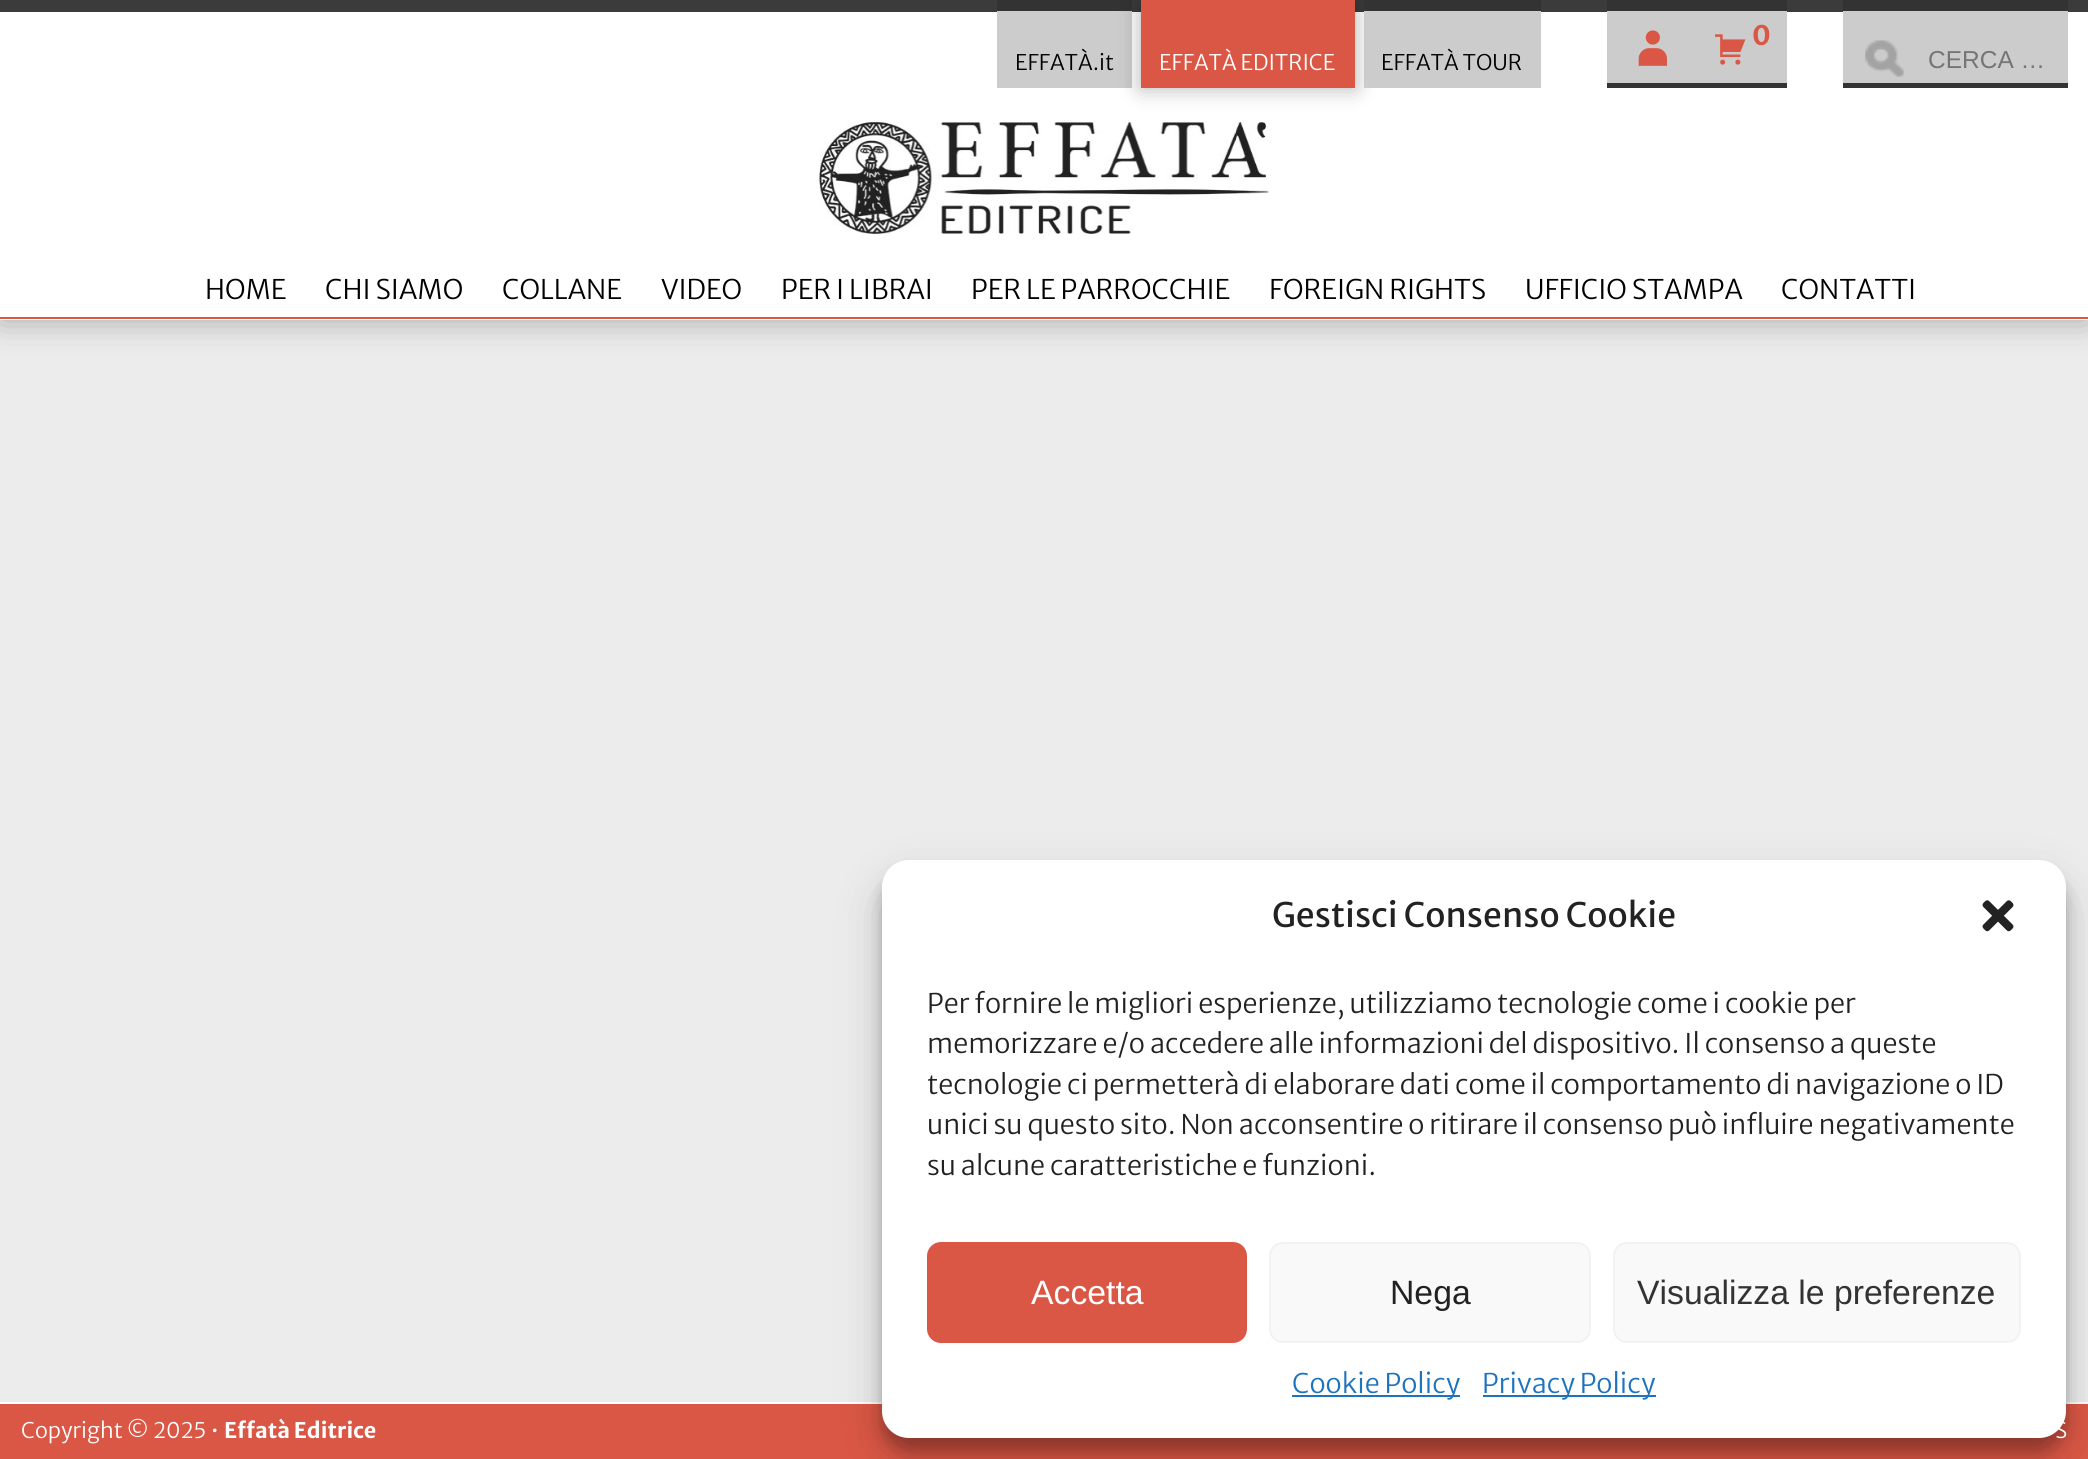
#include <cairo.h>
#include <math.h>
#include <stddef.h>


static void round_rect(cairo_t *cr, double x, double y, double w, double h, double r) {
    cairo_new_sub_path(cr);
    cairo_arc(cr, x + w - r, y + h - r, r, 0, M_PI / 2);
    cairo_arc(cr, x + r, y + h - r, r, M_PI / 2, M_PI);
    cairo_arc(cr, x + r, y + r, r, M_PI, 1.5 * M_PI);
    cairo_arc(cr, x + w - r, y + r, r, 1.5 * M_PI, 2 * M_PI);
    cairo_close_path(cr);
}

static void shadow(cairo_t *cr, double x, double y, double w, double h, double r, double blur, double alpha) {
    cairo_push_group_with_content(cr, CAIRO_CONTENT_ALPHA);
    cairo_set_operator(cr, CAIRO_OPERATOR_SOURCE);
    for (int i = 15; i >= -15 && fmin(w, h) + blur * i / 3 > 0; i -= 2) {
        double e = blur * i / 6;
        cairo_set_source_rgba(cr, 0, 0, 0, alpha * erfc((i - 1) / 8.5) / 2);
        round_rect(cr, x - e, y - e, w + 2 * e, h + 2 * e, fmax(0, fmin(r + e + blur * .6, fmin(w, h) / 2 + e)));
        cairo_fill(cr);
    }
    cairo_pattern_t *soft = cairo_pop_group(cr);
    cairo_mask(cr, soft);
    cairo_pattern_destroy(soft);
}

static void picture(cairo_t *cr, const char *path, double x, double y, double w, double h) {
    cairo_surface_t *image = cairo_image_surface_create_from_png(path);
    cairo_save(cr);
    cairo_set_source_surface(cr, image, x, y);
    cairo_rectangle(cr, x, y, w, h);
    cairo_fill(cr);
    cairo_restore(cr);
    cairo_surface_destroy(image);
}

int main(void) {
    cairo_surface_t *surface = cairo_image_surface_create(CAIRO_FORMAT_RGB24, 2088, 1459);
    cairo_t *cr = cairo_create(surface);
    cairo_font_options_t *options = cairo_font_options_create();
    cairo_font_options_set_hint_metrics(options, CAIRO_HINT_METRICS_OFF);
    cairo_font_options_set_hint_style(options, CAIRO_HINT_STYLE_NONE);
    cairo_set_font_options(cr, options);
    cairo_set_miter_limit(cr, 4);
    cairo_set_source_rgb(cr, 0.925, 0.925, 0.925);
    cairo_paint(cr);
    cairo_set_source_rgb(cr, 0, 0, 0);
    shadow(cr, 0, 0, 2088, 320, 0, 17, 0.3);
    cairo_set_source_rgb(cr, 1, 1, 1);
    cairo_rectangle(cr, 0, 12, 2088, 308);
    cairo_fill(cr);
    cairo_set_source_rgb(cr, 0.231, 0.231, 0.231);
    cairo_rectangle(cr, 0, 0, 2088, 12);
    cairo_fill(cr);
    cairo_set_source_rgb(cr, 0.859, 0.341, 0.271);
    cairo_rectangle(cr, 0, 317, 2088, 2);
    cairo_fill(cr);
    cairo_set_source_rgb(cr, 0.8, 0.8, 0.8);
    cairo_rectangle(cr, 1607, 11, 180, 72);
    cairo_fill(cr);
    cairo_set_source_rgb(cr, 0.2, 0.2, 0.2);
    cairo_rectangle(cr, 1607, 0, 180, 11);
    cairo_fill(cr);
    cairo_rectangle(cr, 1607, 83, 180, 5);
    cairo_fill(cr);
    picture(cr, "img1.png", 1638, 30, 29, 36);
    picture(cr, "img2.png", 1715, 34, 31, 31);
    cairo_select_font_face(cr, "Merriweather Sans", CAIRO_FONT_SLANT_NORMAL, CAIRO_FONT_WEIGHT_BOLD);
    cairo_set_font_size(cr, 27);
    cairo_set_source_rgb(cr, 0.859, 0.341, 0.271);
    cairo_move_to(cr, 1752, 45);
    cairo_show_text(cr, "0");
    cairo_set_source_rgb(cr, 0.8, 0.8, 0.8);
    cairo_rectangle(cr, 997, 11, 135, 77);
    cairo_fill(cr);
    cairo_set_source_rgb(cr, 0.2, 0.2, 0.2);
    cairo_rectangle(cr, 997, 0, 135, 11);
    cairo_fill(cr);
    cairo_select_font_face(cr, "Merriweather Sans Light", CAIRO_FONT_SLANT_NORMAL, CAIRO_FONT_WEIGHT_NORMAL);
    cairo_set_font_size(cr, 21.5);
    cairo_set_source_rgb(cr, 0, 0, 0);
    cairo_move_to(cr, 1015, 70);
    cairo_show_text(cr, "EFFATÀ.it");
    cairo_set_source_rgb(cr, 0, 0, 0);
    shadow(cr, 1141, 0, 214, 88, 0, 11, 0.3);
    cairo_set_source_rgb(cr, 0.859, 0.341, 0.271);
    cairo_rectangle(cr, 1141, 0, 214, 88);
    cairo_fill(cr);
    cairo_set_source_rgb(cr, 1, 1, 1);
    cairo_move_to(cr, 1159, 70);
    cairo_show_text(cr, "EFFATÀ EDITRICE");
    cairo_set_source_rgb(cr, 0.8, 0.8, 0.8);
    cairo_rectangle(cr, 1364, 11, 177, 77);
    cairo_fill(cr);
    cairo_set_source_rgb(cr, 0.2, 0.2, 0.2);
    cairo_rectangle(cr, 1364, 0, 177, 11);
    cairo_fill(cr);
    cairo_set_source_rgb(cr, 0, 0, 0);
    cairo_move_to(cr, 1381, 70);
    cairo_show_text(cr, "EFFATÀ TOUR");
    cairo_set_source_rgb(cr, 0.8, 0.8, 0.8);
    cairo_rectangle(cr, 1843, 11, 225, 72);
    cairo_fill(cr);
    cairo_set_source_rgb(cr, 0.2, 0.2, 0.2);
    cairo_rectangle(cr, 1843, 0, 225, 11);
    cairo_fill(cr);
    cairo_rectangle(cr, 1843, 83, 225, 5);
    cairo_fill(cr);
    picture(cr, "img3.png", 1865, 40, 39, 37);
    cairo_select_font_face(cr, "Liberation Sans", CAIRO_FONT_SLANT_NORMAL, CAIRO_FONT_WEIGHT_NORMAL);
    cairo_set_font_size(cr, 24.5);
    cairo_set_source_rgb(cr, 0.459, 0.459, 0.459);
    cairo_move_to(cr, 1928, 68);
    cairo_show_text(cr, "CERCA …");
    picture(cr, "img4.png", 819, 122, 450, 112);
    cairo_select_font_face(cr, "Merriweather Sans Light", CAIRO_FONT_SLANT_NORMAL, CAIRO_FONT_WEIGHT_NORMAL);
    cairo_set_font_size(cr, 27);
    cairo_set_source_rgb(cr, 0, 0, 0);
    cairo_move_to(cr, 205, 299);
    cairo_show_text(cr, "HOME");
    cairo_move_to(cr, 325, 299);
    cairo_show_text(cr, "CHI SIAMO");
    cairo_move_to(cr, 502, 299);
    cairo_show_text(cr, "COLLANE");
    cairo_move_to(cr, 661, 299);
    cairo_show_text(cr, "VIDEO");
    cairo_move_to(cr, 781, 299);
    cairo_show_text(cr, "PER I LIBRAI");
    cairo_move_to(cr, 971, 299);
    cairo_show_text(cr, "PER LE PARROCCHIE");
    cairo_move_to(cr, 1269, 299);
    cairo_show_text(cr, "FOREIGN RIGHTS");
    cairo_move_to(cr, 1525, 299);
    cairo_show_text(cr, "UFFICIO STAMPA");
    cairo_move_to(cr, 1781, 299);
    cairo_show_text(cr, "CONTATTI");
    cairo_set_source_rgb(cr, 0.859, 0.341, 0.271);
    cairo_rectangle(cr, 0, 1404, 2088, 55);
    cairo_fill(cr);
    cairo_set_source_rgb(cr, 1, 1, 1);
    cairo_rectangle(cr, 0, 1402, 2088, 2);
    cairo_fill(cr);
    cairo_set_source_rgb(cr, 0, 0, 0);
    shadow(cr, 882, 873, 1184, 578, 27, 7, 0.23);
    shadow(cr, 882, 882, 1184, 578, 27, 22.5, 0.19);
    cairo_set_source_rgb(cr, 1, 1, 1);
    round_rect(cr, 882, 860, 1184, 578, 27);
    cairo_fill(cr);
    cairo_select_font_face(cr, "Merriweather Sans", CAIRO_FONT_SLANT_NORMAL, CAIRO_FONT_WEIGHT_NORMAL);
    cairo_set_font_size(cr, 33.75);
    cairo_set_source_rgb(cr, 0.133, 0.133, 0.133);
    cairo_move_to(cr, 1272, 927);
    cairo_show_text(cr, "Gestisci Consenso Cookie");
    picture(cr, "img5.png", 1982, 900, 32, 32);
    cairo_select_font_face(cr, "Merriweather Sans Light", CAIRO_FONT_SLANT_NORMAL, CAIRO_FONT_WEIGHT_NORMAL);
    cairo_set_font_size(cr, 27);
    cairo_move_to(cr, 927, 1013);
    cairo_show_text(cr, "Per fornire le migliori esperienze, utilizziamo tecnologie come i cookie per");
    cairo_move_to(cr, 927, 1053);
    cairo_show_text(cr, "memorizzare e/o accedere alle informazioni del dispositivo. Il consenso a queste");
    cairo_move_to(cr, 927, 1094);
    cairo_show_text(cr, "tecnologie ci permetterà di elaborare dati come il comportamento di navigazione o ID");
    cairo_move_to(cr, 927, 1134);
    cairo_show_text(cr, "unici su questo sito. Non acconsentire o ritirare il consenso può influire negativamente");
    cairo_move_to(cr, 927, 1175);
    cairo_show_text(cr, "su alcune caratteristiche e funzioni.");
    cairo_set_source_rgb(cr, 0.859, 0.341, 0.271);
    round_rect(cr, 928, 1243, 318, 99, 13);
    cairo_fill_preserve(cr);
    cairo_stroke(cr);
    cairo_select_font_face(cr, "Liberation Sans", CAIRO_FONT_SLANT_NORMAL, CAIRO_FONT_WEIGHT_NORMAL);
    cairo_set_font_size(cr, 33.75);
    cairo_set_source_rgb(cr, 1, 1, 1);
    cairo_move_to(cr, 1031, 1304);
    cairo_show_text(cr, "Accetta");
    cairo_set_source_rgb(cr, 0.976, 0.976, 0.976);
    round_rect(cr, 1270, 1243, 320, 99, 13);
    cairo_fill_preserve(cr);
    cairo_set_source_rgb(cr, 0.949, 0.949, 0.949);
    cairo_stroke(cr);
    cairo_set_source_rgb(cr, 0.133, 0.133, 0.133);
    cairo_move_to(cr, 1390, 1304);
    cairo_show_text(cr, "Nega");
    cairo_set_source_rgb(cr, 0.976, 0.976, 0.976);
    round_rect(cr, 1614, 1243, 406, 99, 13);
    cairo_fill_preserve(cr);
    cairo_set_source_rgb(cr, 0.949, 0.949, 0.949);
    cairo_stroke(cr);
    cairo_set_source_rgb(cr, 0.2, 0.2, 0.2);
    cairo_move_to(cr, 1637, 1304);
    cairo_show_text(cr, "Visualizza le preferenze");
    cairo_set_source_rgb(cr, 0.118, 0.451, 0.745);
    cairo_rectangle(cr, 1292, 1395, 168, 2);
    cairo_fill(cr);
    cairo_select_font_face(cr, "Merriweather Sans Light", CAIRO_FONT_SLANT_NORMAL, CAIRO_FONT_WEIGHT_NORMAL);
    cairo_set_font_size(cr, 27);
    cairo_move_to(cr, 1292, 1393);
    cairo_show_text(cr, "Cookie Policy");
    cairo_rectangle(cr, 1483, 1395, 173, 2);
    cairo_fill(cr);
    cairo_move_to(cr, 1482, 1393);
    cairo_show_text(cr, "Privacy Policy");
    cairo_set_font_size(cr, 21.5);
    cairo_set_source_rgb(cr, 1, 1, 1);
    cairo_move_to(cr, 21, 1438);
    cairo_show_text(cr, "Copyright © 2025 •");
    cairo_select_font_face(cr, "Merriweather Sans", CAIRO_FONT_SLANT_NORMAL, CAIRO_FONT_WEIGHT_BOLD);
    cairo_move_to(cr, 224, 1438);
    cairo_show_text(cr, "Effatà Editrice");
    cairo_select_font_face(cr, "Merriweather Sans Light", CAIRO_FONT_SLANT_NORMAL, CAIRO_FONT_WEIGHT_NORMAL);
    cairo_move_to(cr, 2055, 1438);
    cairo_show_text(cr, "S");
    cairo_surface_write_to_png(surface, "page.png");
    cairo_font_options_destroy(options);
    cairo_destroy(cr);
    cairo_surface_destroy(surface);
    return 0;
}
